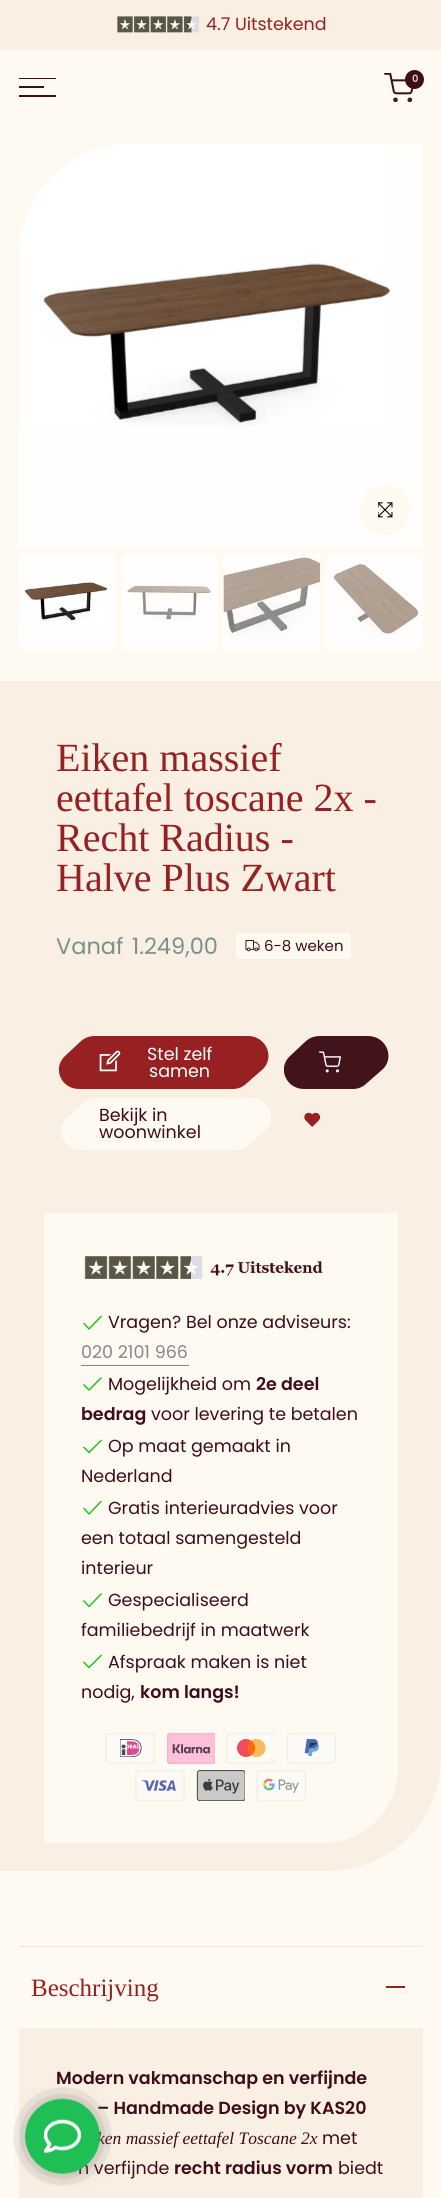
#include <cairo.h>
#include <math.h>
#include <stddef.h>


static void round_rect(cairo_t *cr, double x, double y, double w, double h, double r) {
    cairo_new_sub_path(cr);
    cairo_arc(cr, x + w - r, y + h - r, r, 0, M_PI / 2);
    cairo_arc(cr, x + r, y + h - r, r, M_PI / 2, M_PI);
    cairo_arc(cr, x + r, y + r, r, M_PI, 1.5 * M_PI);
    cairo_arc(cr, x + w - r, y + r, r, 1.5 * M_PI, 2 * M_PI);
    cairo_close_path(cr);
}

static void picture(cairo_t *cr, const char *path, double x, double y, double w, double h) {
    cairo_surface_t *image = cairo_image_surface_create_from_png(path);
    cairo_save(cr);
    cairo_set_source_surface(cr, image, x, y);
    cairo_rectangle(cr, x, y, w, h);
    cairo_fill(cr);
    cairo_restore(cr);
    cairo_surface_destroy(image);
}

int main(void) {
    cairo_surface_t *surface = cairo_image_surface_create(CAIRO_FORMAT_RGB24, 441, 2198);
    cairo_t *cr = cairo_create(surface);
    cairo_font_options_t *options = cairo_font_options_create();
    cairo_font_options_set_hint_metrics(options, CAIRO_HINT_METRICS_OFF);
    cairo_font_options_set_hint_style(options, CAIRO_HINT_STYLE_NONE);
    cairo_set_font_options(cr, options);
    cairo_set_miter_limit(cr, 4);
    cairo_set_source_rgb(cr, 1, 0.98, 0.945);
    cairo_paint(cr);
    cairo_set_source_rgb(cr, 0.973, 0.941, 0.89);
    cairo_rectangle(cr, 0, 0, 441, 50);
    cairo_fill(cr);
    picture(cr, "img1.png", 117, 16, 83, 17);
    cairo_select_font_face(cr, "Poppins", CAIRO_FONT_SLANT_NORMAL, CAIRO_FONT_WEIGHT_NORMAL);
    cairo_set_font_size(cr, 17.5);
    cairo_set_source_rgb(cr, 0.592, 0.129, 0.133);
    cairo_move_to(cr, 206, 30);
    cairo_show_text(cr, "4.7 Uitstekend");
    cairo_set_source_rgb(cr, 0.243, 0.051, 0.098);
    cairo_rectangle(cr, 19, 78, 37, 1);
    cairo_fill(cr);
    cairo_rectangle(cr, 19, 86, 25, 2);
    cairo_fill(cr);
    cairo_rectangle(cr, 19, 95, 37, 2);
    cairo_fill(cr);
    picture(cr, "img2.png", 384, 73, 30, 30);
    cairo_arc(cr, 414.5, 79.5, 9.5, 0, 2 * M_PI);
    cairo_fill(cr);
    cairo_select_font_face(cr, "Poppins SemiBold", CAIRO_FONT_SLANT_NORMAL, CAIRO_FONT_WEIGHT_NORMAL);
    cairo_set_font_size(cr, 10);
    cairo_set_source_rgb(cr, 0.847, 0.812, 0.82);
    cairo_move_to(cr, 412, 82);
    cairo_show_text(cr, "0");
    cairo_set_source_rgb(cr, 1, 0.996, 0.988);
    cairo_new_path(cr);
    cairo_move_to(cr, 132, 144);
    cairo_line_to(cr, 423, 144);
    cairo_line_to(cr, 423, 548);
    cairo_line_to(cr, 19, 548);
    cairo_line_to(cr, 19, 257);
    cairo_curve_to(cr, 19, 194.5, 69.5, 144, 132, 144);
    cairo_close_path(cr);
    cairo_fill(cr);
    picture(cr, "img3.png", 19, 144, 371, 283);
    cairo_set_source_rgb(cr, 1, 0.98, 0.945);
    cairo_arc(cr, 385, 510, 25, 0, 2 * M_PI);
    cairo_fill(cr);
    picture(cr, "img4.png", 378, 502, 15, 16);
    cairo_set_source_rgb(cr, 1, 0.996, 0.988);
    cairo_rectangle(cr, 19, 554, 96, 96);
    cairo_fill(cr);
    picture(cr, "img5.png", 25, 580, 82, 42);
    cairo_set_source_rgb(cr, 1, 0.988, 0.969);
    cairo_rectangle(cr, 121, 554, 97, 96);
    cairo_fill(cr);
    picture(cr, "img6.png", 122, 554, 95, 96);
    cairo_rectangle(cr, 224, 554, 96, 96);
    cairo_fill(cr);
    picture(cr, "img7.png", 223, 554, 97, 96);
    cairo_rectangle(cr, 326, 554, 97, 96);
    cairo_fill(cr);
    picture(cr, "img8.png", 327, 554, 95, 96);
    cairo_set_source_rgb(cr, 0.973, 0.941, 0.89);
    cairo_new_path(cr);
    cairo_move_to(cr, 0, 681);
    cairo_line_to(cr, 441, 681);
    cairo_line_to(cr, 441, 1758);
    cairo_curve_to(cr, 441, 1820.5, 390.5, 1871, 328, 1871);
    cairo_line_to(cr, 0, 1871);
    cairo_close_path(cr);
    cairo_fill(cr);
    cairo_select_font_face(cr, "Liberation Serif", CAIRO_FONT_SLANT_NORMAL, CAIRO_FONT_WEIGHT_NORMAL);
    cairo_set_font_size(cr, 40);
    cairo_set_source_rgb(cr, 0.592, 0.129, 0.133);
    cairo_move_to(cr, 56, 771);
    cairo_show_text(cr, "Eiken massief");
    cairo_move_to(cr, 56, 811);
    cairo_show_text(cr, "eettafel toscane 2x -");
    cairo_move_to(cr, 56, 851);
    cairo_show_text(cr, "Recht Radius -");
    cairo_move_to(cr, 56, 891);
    cairo_show_text(cr, "Halve Plus Zwart");
    cairo_select_font_face(cr, "Poppins", CAIRO_FONT_SLANT_NORMAL, CAIRO_FONT_WEIGHT_NORMAL);
    cairo_set_font_size(cr, 22.5);
    cairo_set_source_rgb(cr, 0.475, 0.569, 0.553);
    cairo_move_to(cr, 56, 954);
    cairo_show_text(cr, "Vanaf");
    cairo_move_to(cr, 132, 954);
    cairo_show_text(cr, "1.249,00");
    cairo_set_source_rgb(cr, 1, 0.98, 0.945);
    round_rect(cr, 236, 933, 115, 26, 4);
    cairo_fill(cr);
    picture(cr, "img9.png", 245, 940, 15, 12);
    cairo_set_font_size(cr, 15);
    cairo_set_source_rgb(cr, 0.243, 0.051, 0.098);
    cairo_move_to(cr, 264, 951);
    cairo_show_text(cr, "6-8 weken");
    cairo_set_source_rgb(cr, 0.592, 0.129, 0.133);
    cairo_rectangle(cr, 100, 1036, 128, 53);
    cairo_fill(cr);
    cairo_save(cr);
    cairo_rectangle(cr, 59, 1036, 41, 53);
    cairo_clip(cr);
    cairo_new_path(cr);
    cairo_move_to(cr, 65, 1056);
    cairo_line_to(cr, 80, 1042);
    cairo_curve_to(cr, 84, 1038, 89, 1036, 95, 1036);
    cairo_line_to(cr, 100, 1036);
    cairo_line_to(cr, 100, 1089);
    cairo_line_to(cr, 79, 1089);
    cairo_curve_to(cr, 61, 1089, 52, 1068, 65, 1056);
    cairo_close_path(cr);
    cairo_fill(cr);
    cairo_restore(cr);
    picture(cr, "img10.png", 99, 1050, 22, 22);
    cairo_set_font_size(cr, 17.5);
    cairo_set_source_rgb(cr, 1, 1, 1);
    cairo_move_to(cr, 147, 1060);
    cairo_show_text(cr, "Stel zelf");
    cairo_move_to(cr, 149, 1077);
    cairo_show_text(cr, "samen");
    cairo_set_source_rgb(cr, 0.592, 0.129, 0.133);
    cairo_new_path(cr);
    cairo_move_to(cr, 263, 1069);
    cairo_line_to(cr, 247, 1083);
    cairo_curve_to(cr, 243, 1087, 238, 1089, 233, 1089);
    cairo_line_to(cr, 228, 1089);
    cairo_line_to(cr, 228, 1036);
    cairo_line_to(cr, 248, 1036);
    cairo_curve_to(cr, 266, 1036, 275, 1057, 263, 1069);
    cairo_close_path(cr);
    cairo_fill(cr);
    cairo_set_source_rgb(cr, 0.263, 0.075, 0.106);
    cairo_rectangle(cr, 325, 1036, 23, 53);
    cairo_fill(cr);
    cairo_save(cr);
    cairo_rectangle(cr, 284, 1036, 41, 53);
    cairo_clip(cr);
    cairo_new_path(cr);
    cairo_move_to(cr, 290, 1056);
    cairo_line_to(cr, 305, 1042);
    cairo_curve_to(cr, 309, 1038, 314, 1036, 320, 1036);
    cairo_line_to(cr, 325, 1036);
    cairo_line_to(cr, 325, 1089);
    cairo_line_to(cr, 304, 1089);
    cairo_curve_to(cr, 286, 1089, 277, 1068, 290, 1056);
    cairo_close_path(cr);
    cairo_fill(cr);
    cairo_restore(cr);
    picture(cr, "img11.png", 319, 1051, 22, 22);
    cairo_new_path(cr);
    cairo_move_to(cr, 383, 1069);
    cairo_line_to(cr, 367, 1083);
    cairo_curve_to(cr, 363, 1087, 358, 1089, 353, 1089);
    cairo_line_to(cr, 348, 1089);
    cairo_line_to(cr, 348, 1036);
    cairo_line_to(cr, 368, 1036);
    cairo_curve_to(cr, 386, 1036, 395, 1057, 383, 1069);
    cairo_close_path(cr);
    cairo_fill(cr);
    cairo_set_source_rgb(cr, 1, 0.98, 0.945);
    cairo_rectangle(cr, 102, 1098, 128, 52);
    cairo_fill(cr);
    cairo_new_path(cr);
    cairo_move_to(cr, 67, 1118);
    cairo_line_to(cr, 83, 1103);
    cairo_curve_to(cr, 87, 1100, 92, 1098, 97, 1098);
    cairo_line_to(cr, 102, 1098);
    cairo_line_to(cr, 102, 1150);
    cairo_line_to(cr, 82, 1150);
    cairo_curve_to(cr, 64, 1150, 54, 1130, 67, 1118);
    cairo_close_path(cr);
    cairo_fill(cr);
    cairo_set_source_rgb(cr, 0.243, 0.051, 0.098);
    cairo_move_to(cr, 99, 1121);
    cairo_show_text(cr, "Bekijk in");
    cairo_save(cr);
    cairo_rectangle(cr, 230, 1098, 41, 52);
    cairo_clip(cr);
    cairo_set_source_rgb(cr, 1, 0.98, 0.945);
    cairo_new_path(cr);
    cairo_move_to(cr, 265, 1130);
    cairo_line_to(cr, 249, 1144);
    cairo_curve_to(cr, 246, 1148, 241, 1150, 235, 1150);
    cairo_line_to(cr, 230, 1150);
    cairo_line_to(cr, 230, 1098);
    cairo_line_to(cr, 251, 1098);
    cairo_curve_to(cr, 269, 1098, 278, 1118, 265, 1130);
    cairo_close_path(cr);
    cairo_fill(cr);
    cairo_restore(cr);
    cairo_move_to(cr, 99, 1138);
    cairo_show_text(cr, "woonwinkel");
    picture(cr, "img12.png", 304, 1112, 17, 15);
    cairo_set_source_rgb(cr, 1, 0.98, 0.945);
    cairo_new_path(cr);
    cairo_move_to(cr, 44, 1213);
    cairo_line_to(cr, 398, 1213);
    cairo_line_to(cr, 398, 1768);
    cairo_curve_to(cr, 398, 1809.5, 364.5, 1843, 323, 1843);
    cairo_line_to(cr, 44, 1843);
    cairo_close_path(cr);
    cairo_fill(cr);
    picture(cr, "img13.png", 84, 1256, 239, 23);
    cairo_set_source_rgb(cr, 0.067, 0.78, 0.067);
    cairo_new_path(cr);
    cairo_move_to(cr, 101, 1315.5);
    cairo_line_to(cr, 89, 1328);
    cairo_line_to(cr, 84, 1322.5);
    cairo_line_to(cr, 83, 1323.5);
    cairo_line_to(cr, 89, 1330);
    cairo_line_to(cr, 102, 1316.5);
    cairo_close_path(cr);
    cairo_fill(cr);
    cairo_set_source_rgb(cr, 0.243, 0.051, 0.098);
    cairo_move_to(cr, 108, 1328);
    cairo_show_text(cr, "Vragen? Bel onze adviseurs:");
    cairo_set_source_rgb(cr, 0.529, 0.529, 0.529);
    cairo_move_to(cr, 81, 1358);
    cairo_show_text(cr, "020 2101 966");
    cairo_rectangle(cr, 81, 1365, 108, 1);
    cairo_fill(cr);
    cairo_set_source_rgb(cr, 0.067, 0.78, 0.067);
    cairo_new_path(cr);
    cairo_move_to(cr, 101, 1377);
    cairo_line_to(cr, 89, 1389);
    cairo_line_to(cr, 84, 1384);
    cairo_line_to(cr, 83, 1385);
    cairo_line_to(cr, 89, 1391);
    cairo_line_to(cr, 102, 1378);
    cairo_close_path(cr);
    cairo_fill(cr);
    cairo_set_source_rgb(cr, 0.243, 0.051, 0.098);
    cairo_move_to(cr, 108, 1390);
    cairo_show_text(cr, "Mogelijkheid om");
    cairo_select_font_face(cr, "Poppins SemiBold", CAIRO_FONT_SLANT_NORMAL, CAIRO_FONT_WEIGHT_NORMAL);
    cairo_move_to(cr, 256, 1390);
    cairo_show_text(cr, "2e deel");
    cairo_move_to(cr, 81, 1420);
    cairo_show_text(cr, "bedrag");
    cairo_select_font_face(cr, "Poppins", CAIRO_FONT_SLANT_NORMAL, CAIRO_FONT_WEIGHT_NORMAL);
    cairo_move_to(cr, 151, 1420);
    cairo_show_text(cr, "voor levering te betalen");
    cairo_set_source_rgb(cr, 0.067, 0.78, 0.067);
    cairo_new_path(cr);
    cairo_move_to(cr, 101, 1439.5);
    cairo_line_to(cr, 89, 1451.5);
    cairo_line_to(cr, 84, 1446.5);
    cairo_line_to(cr, 83, 1447.5);
    cairo_line_to(cr, 89, 1453.5);
    cairo_line_to(cr, 102, 1440.5);
    cairo_close_path(cr);
    cairo_fill(cr);
    cairo_set_source_rgb(cr, 0.243, 0.051, 0.098);
    cairo_move_to(cr, 108, 1452);
    cairo_show_text(cr, "Op maat gemaakt in");
    cairo_move_to(cr, 81, 1482);
    cairo_show_text(cr, "Nederland");
    cairo_set_source_rgb(cr, 0.067, 0.78, 0.067);
    cairo_new_path(cr);
    cairo_move_to(cr, 101, 1500.5);
    cairo_line_to(cr, 89, 1513);
    cairo_line_to(cr, 84, 1507.5);
    cairo_line_to(cr, 83, 1508.5);
    cairo_line_to(cr, 89, 1515);
    cairo_line_to(cr, 102, 1501.5);
    cairo_close_path(cr);
    cairo_fill(cr);
    cairo_set_source_rgb(cr, 0.243, 0.051, 0.098);
    cairo_move_to(cr, 108, 1514);
    cairo_show_text(cr, "Gratis interieuradvies voor");
    cairo_move_to(cr, 81, 1544);
    cairo_show_text(cr, "een totaal samengesteld");
    cairo_move_to(cr, 81, 1574);
    cairo_show_text(cr, "interieur");
    cairo_set_source_rgb(cr, 0.067, 0.78, 0.067);
    cairo_new_path(cr);
    cairo_move_to(cr, 101, 1593);
    cairo_line_to(cr, 89, 1605.5);
    cairo_line_to(cr, 84, 1600);
    cairo_line_to(cr, 83, 1601);
    cairo_line_to(cr, 89, 1607.5);
    cairo_line_to(cr, 102, 1594);
    cairo_close_path(cr);
    cairo_fill(cr);
    cairo_set_source_rgb(cr, 0.243, 0.051, 0.098);
    cairo_move_to(cr, 108, 1606);
    cairo_show_text(cr, "Gespecialiseerd");
    cairo_move_to(cr, 81, 1636);
    cairo_show_text(cr, "familiebedrijf in maatwerk");
    cairo_set_source_rgb(cr, 0.067, 0.78, 0.067);
    cairo_new_path(cr);
    cairo_move_to(cr, 101, 1654.5);
    cairo_line_to(cr, 89, 1666.5);
    cairo_line_to(cr, 84, 1661.5);
    cairo_line_to(cr, 83, 1662.5);
    cairo_line_to(cr, 89, 1668.5);
    cairo_line_to(cr, 102, 1655.5);
    cairo_close_path(cr);
    cairo_fill(cr);
    cairo_set_source_rgb(cr, 0.243, 0.051, 0.098);
    cairo_move_to(cr, 108, 1668);
    cairo_show_text(cr, "Afspraak maken is niet");
    cairo_move_to(cr, 81, 1698);
    cairo_show_text(cr, "nodig,");
    cairo_select_font_face(cr, "Poppins SemiBold", CAIRO_FONT_SLANT_NORMAL, CAIRO_FONT_WEIGHT_NORMAL);
    cairo_move_to(cr, 140, 1698);
    cairo_show_text(cr, "kom langs!");
    picture(cr, "img14.png", 105, 1733, 50, 31);
    picture(cr, "img15.png", 167, 1733, 48, 31);
    picture(cr, "img16.png", 226, 1733, 49, 31);
    picture(cr, "img17.png", 286, 1733, 50, 31);
    picture(cr, "img18.png", 135, 1770, 50, 31);
    picture(cr, "img19.png", 196, 1770, 49, 31);
    picture(cr, "img20.png", 256, 1770, 50, 31);
    cairo_set_source_rgb(cr, 0.961, 0.894, 0.863);
    cairo_rectangle(cr, 19, 1946, 404, 1);
    cairo_fill(cr);
    cairo_select_font_face(cr, "Liberation Serif", CAIRO_FONT_SLANT_NORMAL, CAIRO_FONT_WEIGHT_NORMAL);
    cairo_set_font_size(cr, 25);
    cairo_set_source_rgb(cr, 0.592, 0.129, 0.133);
    cairo_move_to(cr, 31, 1996);
    cairo_show_text(cr, "Beschrijving");
    cairo_rectangle(cr, 386, 1986, 19, 2);
    cairo_fill(cr);
    cairo_set_source_rgb(cr, 0.973, 0.941, 0.89);
    cairo_rectangle(cr, 19, 2028, 404, 170);
    cairo_fill(cr);
    cairo_select_font_face(cr, "Poppins SemiBold", CAIRO_FONT_SLANT_NORMAL, CAIRO_FONT_WEIGHT_NORMAL);
    cairo_set_font_size(cr, 17.5);
    cairo_set_source_rgb(cr, 0.243, 0.051, 0.098);
    cairo_move_to(cr, 56, 2084);
    cairo_show_text(cr, "Modern vakmanschap en verfijnde");
    cairo_move_to(cr, 97, 2114);
    cairo_show_text(cr, "– Handmade Design by KAS20");
    cairo_select_font_face(cr, "Liberation Serif", CAIRO_FONT_SLANT_ITALIC, CAIRO_FONT_WEIGHT_NORMAL);
    cairo_move_to(cr, 97, 2144);
    cairo_show_text(cr, "ken massief eettafel Toscane 2x");
    cairo_select_font_face(cr, "Poppins", CAIRO_FONT_SLANT_NORMAL, CAIRO_FONT_WEIGHT_NORMAL);
    cairo_move_to(cr, 322, 2144);
    cairo_show_text(cr, "met");
    cairo_move_to(cr, 78, 2174);
    cairo_show_text(cr, "n verfijnde");
    cairo_select_font_face(cr, "Poppins SemiBold", CAIRO_FONT_SLANT_NORMAL, CAIRO_FONT_WEIGHT_NORMAL);
    cairo_move_to(cr, 174, 2174);
    cairo_show_text(cr, "recht radius vorm");
    cairo_select_font_face(cr, "Poppins", CAIRO_FONT_SLANT_NORMAL, CAIRO_FONT_WEIGHT_NORMAL);
    cairo_move_to(cr, 338, 2174);
    cairo_show_text(cr, "biedt");
    picture(cr, "img21.png", 13, 2087, 99, 99);
    cairo_surface_write_to_png(surface, "page.png");
    cairo_font_options_destroy(options);
    cairo_destroy(cr);
    cairo_surface_destroy(surface);
    return 0;
}
